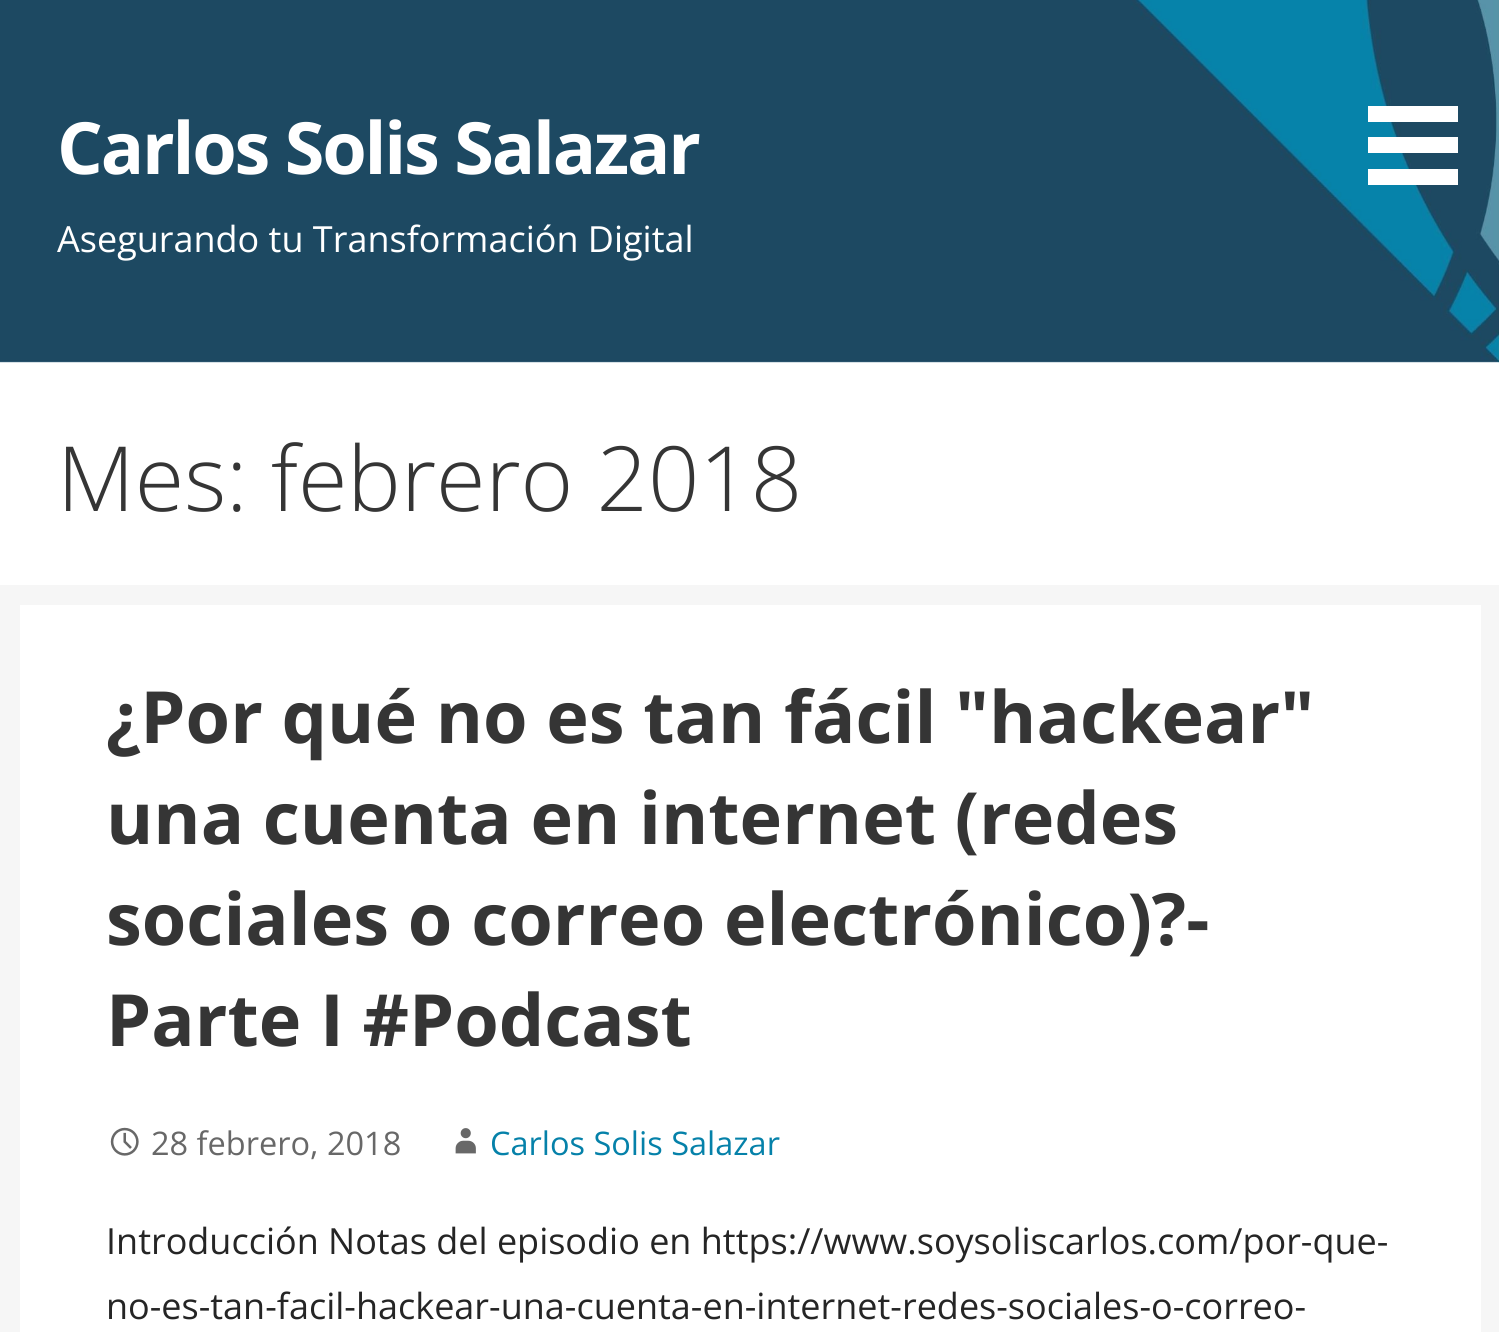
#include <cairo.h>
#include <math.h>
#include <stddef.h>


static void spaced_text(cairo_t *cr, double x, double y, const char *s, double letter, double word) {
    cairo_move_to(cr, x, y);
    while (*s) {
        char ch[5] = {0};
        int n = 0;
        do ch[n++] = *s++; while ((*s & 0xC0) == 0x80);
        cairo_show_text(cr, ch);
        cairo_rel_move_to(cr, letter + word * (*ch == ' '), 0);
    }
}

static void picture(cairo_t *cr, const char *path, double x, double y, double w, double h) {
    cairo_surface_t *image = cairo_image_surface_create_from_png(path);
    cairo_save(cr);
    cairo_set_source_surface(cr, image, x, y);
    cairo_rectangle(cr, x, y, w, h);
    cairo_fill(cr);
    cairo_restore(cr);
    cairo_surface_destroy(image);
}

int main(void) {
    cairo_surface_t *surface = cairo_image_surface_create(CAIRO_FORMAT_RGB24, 1499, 1332);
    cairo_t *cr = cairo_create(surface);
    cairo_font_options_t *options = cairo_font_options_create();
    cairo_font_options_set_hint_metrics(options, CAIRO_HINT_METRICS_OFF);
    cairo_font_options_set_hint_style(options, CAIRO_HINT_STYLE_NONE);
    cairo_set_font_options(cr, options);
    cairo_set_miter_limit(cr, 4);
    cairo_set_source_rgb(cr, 0.961, 0.961, 0.961);
    cairo_paint(cr);
    cairo_set_source_rgb(cr, 1, 1, 1);
    cairo_rectangle(cr, 0, 362, 1499, 223);
    cairo_fill(cr);
    picture(cr, "img1.png", 0, 0, 1499, 363);
    cairo_select_font_face(cr, "Open Sans", CAIRO_FONT_SLANT_NORMAL, CAIRO_FONT_WEIGHT_BOLD);
    cairo_set_font_size(cr, 72);
    spaced_text(cr, 57, 174, "Carlos Solis Salazar", -2.2, 0);
    cairo_select_font_face(cr, "Open Sans", CAIRO_FONT_SLANT_NORMAL, CAIRO_FONT_WEIGHT_NORMAL);
    cairo_set_font_size(cr, 36);
    cairo_move_to(cr, 57, 252);
    cairo_show_text(cr, "Asegurando tu Transformación Digital");
    cairo_rectangle(cr, 1368, 106, 90, 16);
    cairo_fill(cr);
    cairo_rectangle(cr, 1368, 137, 90, 16);
    cairo_fill(cr);
    cairo_rectangle(cr, 1368, 169, 90, 16);
    cairo_fill(cr);
    cairo_select_font_face(cr, "Open Sans Light", CAIRO_FONT_SLANT_NORMAL, CAIRO_FONT_WEIGHT_NORMAL);
    cairo_set_font_size(cr, 90);
    cairo_set_source_rgb(cr, 0.208, 0.208, 0.208);
    cairo_move_to(cr, 57, 511);
    cairo_show_text(cr, "Mes: febrero 2018");
    cairo_set_source_rgb(cr, 1, 1, 1);
    cairo_rectangle(cr, 20, 605, 1461, 727);
    cairo_fill(cr);
    cairo_select_font_face(cr, "Open Sans", CAIRO_FONT_SLANT_NORMAL, CAIRO_FONT_WEIGHT_BOLD);
    cairo_set_font_size(cr, 72);
    cairo_set_source_rgb(cr, 0.208, 0.208, 0.208);
    cairo_move_to(cr, 106, 743);
    cairo_show_text(cr, "¿Por qué no es tan fácil \"hackear\"");
    cairo_move_to(cr, 106, 844);
    cairo_show_text(cr, "una cuenta en internet (redes");
    cairo_move_to(cr, 106, 945);
    cairo_show_text(cr, "sociales o correo electrónico)?-");
    cairo_move_to(cr, 106, 1046);
    cairo_show_text(cr, "Parte I #Podcast");
    picture(cr, "img2.png", 110, 1127, 29, 29);
    cairo_select_font_face(cr, "Open Sans", CAIRO_FONT_SLANT_NORMAL, CAIRO_FONT_WEIGHT_NORMAL);
    cairo_set_font_size(cr, 32.5);
    cairo_set_source_rgb(cr, 0.408, 0.408, 0.408);
    cairo_move_to(cr, 151, 1155);
    cairo_show_text(cr, "28 febrero, 2018");
    picture(cr, "img3.png", 455, 1128, 21, 26);
    cairo_set_source_rgb(cr, 0.02, 0.506, 0.663);
    cairo_move_to(cr, 490, 1155);
    cairo_show_text(cr, "Carlos Solis Salazar");
    cairo_set_font_size(cr, 36);
    cairo_set_source_rgb(cr, 0.145, 0.145, 0.145);
    cairo_move_to(cr, 106, 1254);
    cairo_show_text(cr, "Introducción Notas del episodio en https://www.soysoliscarlos.com/por-que-");
    cairo_move_to(cr, 106, 1319);
    cairo_show_text(cr, "no-es-tan-facil-hackear-una-cuenta-en-internet-redes-sociales-o-correo-");
    cairo_surface_write_to_png(surface, "page.png");
    cairo_font_options_destroy(options);
    cairo_destroy(cr);
    cairo_surface_destroy(surface);
    return 0;
}
